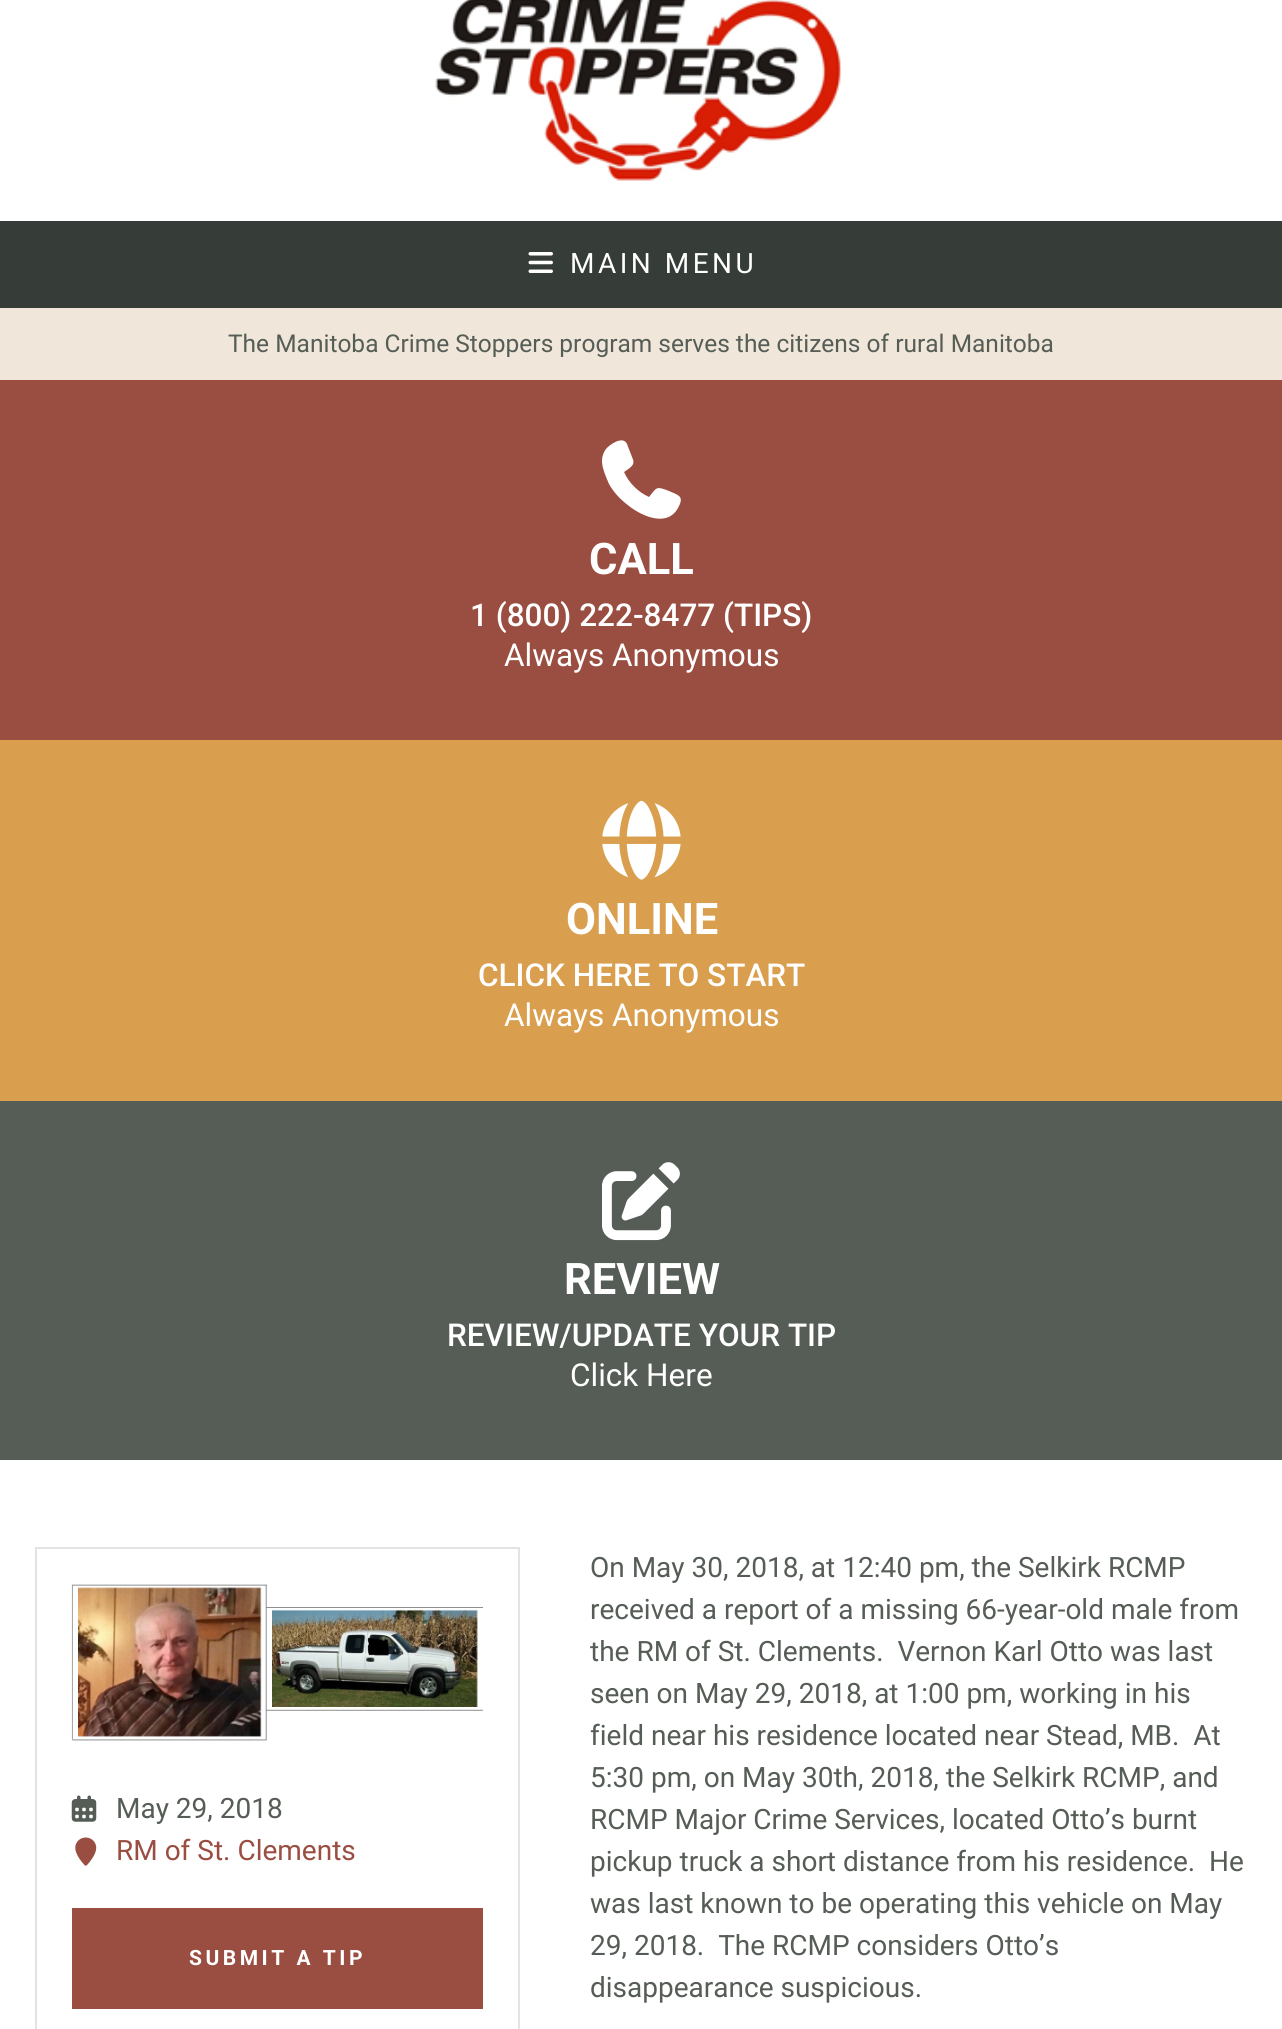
import math
import cairocffi as cairo

surface = cairo.ImageSurface(cairo.FORMAT_RGB24, 1282, 2029)
ctx = cairo.Context(surface)
options = cairo.FontOptions()
options.set_hint_metrics(cairo.HINT_METRICS_OFF)
options.set_hint_style(cairo.HINT_STYLE_NONE)
ctx.set_font_options(options)
ctx.set_miter_limit(4)


def rgb(r, g, b):
    ctx.set_source_rgb(r / 255, g / 255, b / 255)


def face(family, size, italic, bold):
    ctx.select_font_face(family, cairo.FONT_SLANT_ITALIC if italic else cairo.FONT_SLANT_NORMAL, cairo.FONT_WEIGHT_BOLD if bold else cairo.FONT_WEIGHT_NORMAL)
    ctx.set_font_size(size)


def label(x, y, s):
    ctx.move_to(x, y)
    ctx.show_text(s)


def tracked(x, y, s, letter, word):
    ctx.move_to(x, y)
    for ch in s:
        ctx.show_text(ch)
        ctx.rel_move_to(letter + word * (ch == ' '), 0)


def rect(x, y, w, h):
    ctx.rectangle(x, y, w, h)
    ctx.fill()


def image(path, x, y, w, h):
    ctx.save()
    ctx.set_source_surface(cairo.ImageSurface.create_from_png(path), x, y)
    ctx.rectangle(x, y, w, h)
    ctx.fill()
    ctx.restore()


rgb(255, 255, 255)
ctx.paint()
image('image0.png', 435, 0, 407, 181)
rgb(54, 60, 55)
rect(0, 221, 1282, 87)
image('image1.png', 528, 252, 25, 21)
face('Roboto', 28, 0, 0)
rgb(255, 255, 255)
tracked(570, 273, 'MAIN MENU', 3.5, 0)
rgb(240, 231, 218)
rect(0, 308, 1282, 72)
face('Roboto', 24.5, 0, 0)
rgb(86, 93, 86)
label(228, 352, 'The Manitoba Crime Stoppers program serves the citizens of rural Manitoba')
rgb(154, 78, 65)
rect(0, 380, 1282, 360)
rgb(255, 255, 255)
ctx.new_path()
ctx.move_to(627, 444)
ctx.curve_to(623, 435, 609, 445, 606, 449)
ctx.curve_to(603, 453, 602, 457, 602, 461)
ctx.curve_to(602, 468, 606, 477, 609, 484)
ctx.curve_to(614, 493, 621, 500, 629, 506)
ctx.curve_to(643, 517, 669, 528, 679, 506)
ctx.curve_to(684, 496, 678, 495, 669, 491)
ctx.curve_to(656, 486, 657, 487, 649, 497)
ctx.curve_to(638, 492, 629, 483, 624, 472)
ctx.curve_to(631, 467, 636, 465, 632, 457)
ctx.close_path()
ctx.fill()
face('Roboto', 43.5, 0, 1)
label(589, 574, 'CALL')
face('Roboto Medium', 31.5, 0, 0)
label(470, 626, '1 (800) 222-8477 (TIPS)')
face('Roboto', 31.5, 0, 0)
label(504, 666, 'Always Anonymous')
rgb(217, 159, 78)
rect(0, 740, 1282, 361)
image('image2.png', 602, 800, 79, 80)
face('Roboto', 43.5, 0, 1)
rgb(255, 255, 255)
label(566, 934, 'ONLINE')
face('Roboto Medium', 31.5, 0, 0)
label(478, 986, 'CLICK HERE TO START')
face('Roboto', 31.5, 0, 0)
label(504, 1026, 'Always Anonymous')
rgb(86, 93, 86)
rect(0, 1101, 1282, 359)
image('image3.png', 602, 1162, 78, 79)
face('Roboto', 43.5, 0, 1)
rgb(255, 255, 255)
label(564, 1294, 'REVIEW')
face('Roboto Medium', 31.5, 0, 0)
label(447, 1346, 'REVIEW/UPDATE YOUR TIP')
face('Roboto', 31.5, 0, 0)
label(570, 1386, 'Click Here')
ctx.rectangle(36, 1548, 483, 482)
rgb(227, 227, 227)
ctx.stroke()
image('image4.png', 71, 1584, 412, 157)
image('image5.png', 71, 1795, 26, 27)
face('Roboto', 28, 0, 0)
rgb(86, 93, 86)
label(116, 1818, 'May 29, 2018')
image('image6.png', 75, 1837, 22, 29)
rgb(154, 78, 65)
label(116, 1860, 'RM of St. Clements')
rect(72, 1908, 411, 101)
face('Roboto', 21, 0, 1)
rgb(255, 255, 255)
tracked(189, 1965, 'SUBMIT A TIP', 3.5, 0)
face('Roboto', 28, 0, 0)
rgb(86, 93, 86)
label(590, 1577, 'On May 30, 2018, at 12:40 pm, the Selkirk RCMP')
label(590, 1619, 'received a report of a missing 66-year-old male from')
label(590, 1661, 'the RM of St. Clements.  Vernon Karl Otto was last')
label(590, 1703, 'seen on May 29, 2018, at 1:00 pm, working in his')
label(590, 1745, 'field near his residence located near Stead, MB.  At')
label(590, 1787, '5:30 pm, on May 30th, 2018, the Selkirk RCMP, and')
label(590, 1829, 'RCMP Major Crime Services, located Otto’s burnt')
label(590, 1871, 'pickup truck a short distance from his residence.  He')
label(590, 1913, 'was last known to be operating this vehicle on May')
label(590, 1955, '29, 2018.  The RCMP considers Otto’s')
label(590, 1997, 'disappearance suspicious.')
surface.write_to_png('render.png')
